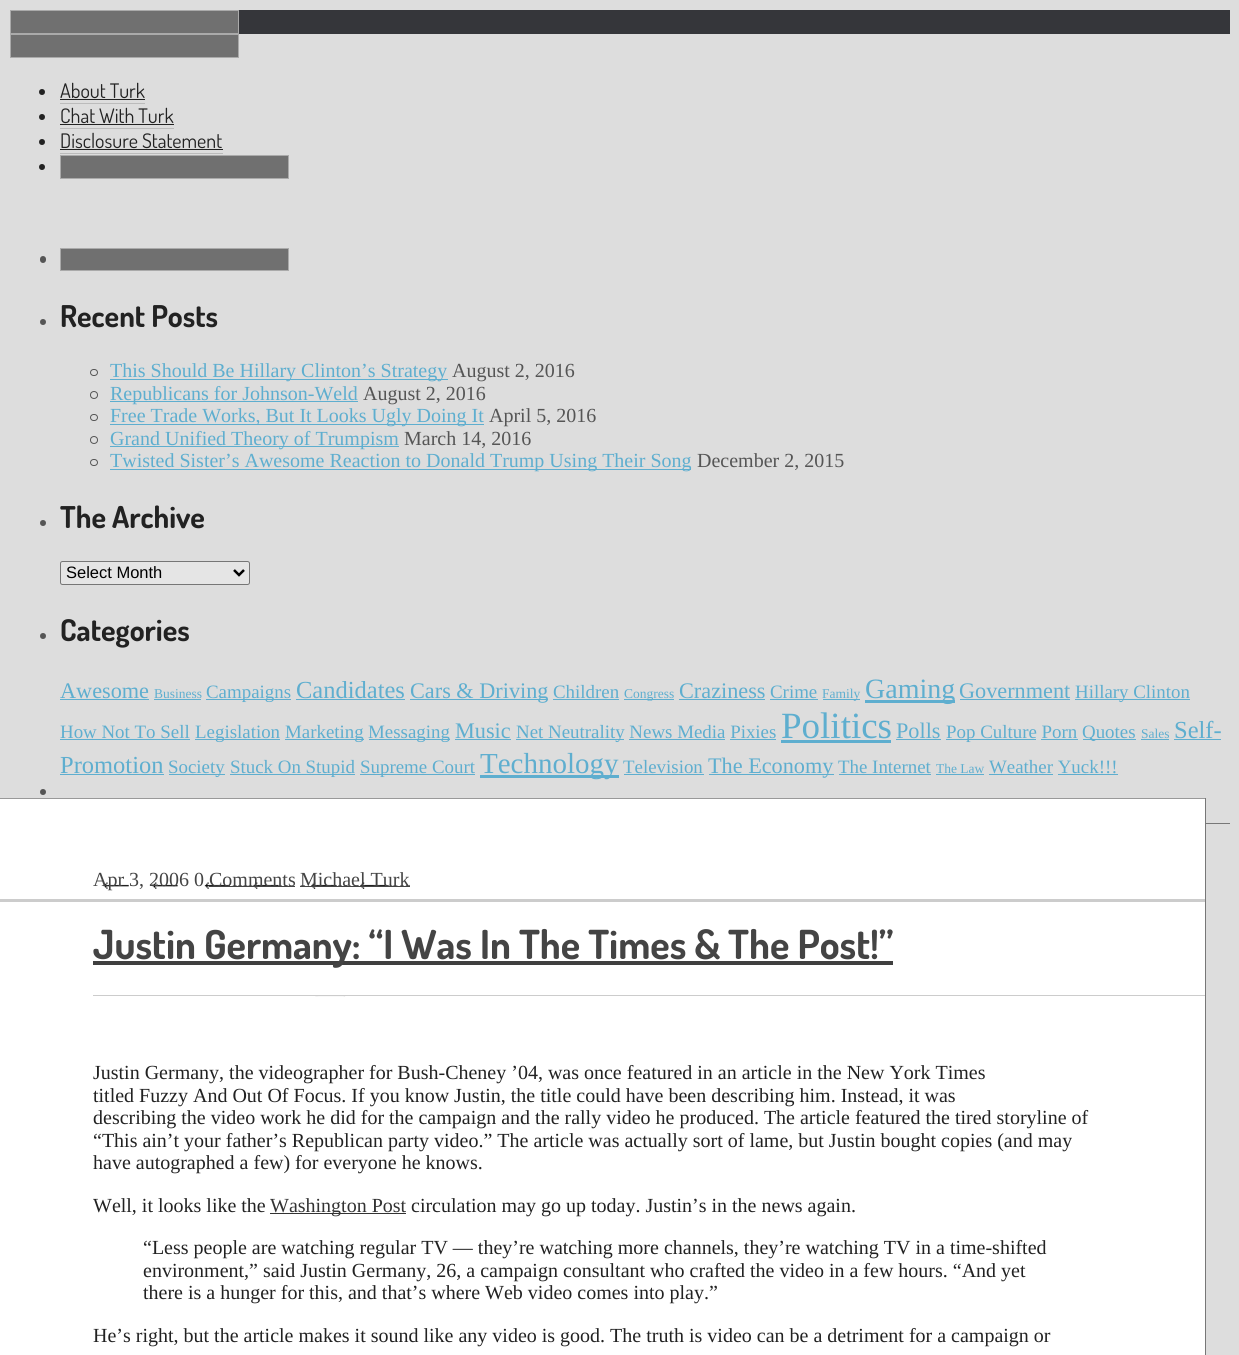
import math
import cairocffi as cairo

surface = cairo.ImageSurface(cairo.FORMAT_RGB24, 1239, 1355)
ctx = cairo.Context(surface)
options = cairo.FontOptions()
options.set_hint_metrics(cairo.HINT_METRICS_OFF)
options.set_hint_style(cairo.HINT_STYLE_NONE)
ctx.set_font_options(options)
ctx.set_miter_limit(4)


def rgb(r, g, b):
    ctx.set_source_rgb(r / 255, g / 255, b / 255)


def face(family, size, italic, bold):
    ctx.select_font_face(family, cairo.FONT_SLANT_ITALIC if italic else cairo.FONT_SLANT_NORMAL, cairo.FONT_WEIGHT_BOLD if bold else cairo.FONT_WEIGHT_NORMAL)
    ctx.set_font_size(size)


def label(x, y, s):
    ctx.move_to(x, y)
    ctx.show_text(s)


def rect(x, y, w, h):
    ctx.rectangle(x, y, w, h)
    ctx.fill()


def rrect(x, y, w, h, r):
    ctx.new_sub_path()
    for i, (u, v) in enumerate([(x + w - r, y + h - r), (x + r, y + h - r), (x + r, y + r), (x + w - r, y + r)]):
        ctx.arc(u, v, r, i * math.pi / 2, (i + 1) * math.pi / 2)
    ctx.close_path()


def image(path, x, y, w, h):
    ctx.save()
    ctx.set_source_surface(cairo.ImageSurface.create_from_png(path), x, y)
    ctx.rectangle(x, y, w, h)
    ctx.fill()
    ctx.restore()


rgb(221, 221, 221)
ctx.paint()
rgb(53, 54, 58)
rect(239, 10, 991, 24)
rgb(112, 112, 112)
ctx.rectangle(10.5, 10.5, 228, 23)
ctx.fill_preserve()
rgb(170, 170, 170)
ctx.set_line_width(1)
ctx.stroke()
rgb(112, 112, 112)
ctx.rectangle(10.5, 34.5, 228, 23)
ctx.fill_preserve()
rgb(170, 170, 170)
ctx.stroke()
rgb(34, 34, 34)
ctx.arc(42, 92, 3, 0, 2 * math.pi)
ctx.fill()
face('Dosis', 20, 0, 0)
label(60, 98, 'About Turk')
rgb(187, 187, 187)
rect(60, 103, 85, 1)
rgb(34, 34, 34)
rect(60, 99, 85, 1)
ctx.new_path()
ctx.arc(42, 117, 3, 0, 2 * math.pi)
ctx.fill()
label(60, 123, 'Chat With Turk')
rgb(187, 187, 187)
rect(60, 128, 114, 1)
rgb(34, 34, 34)
rect(60, 124, 114, 1)
ctx.new_path()
ctx.arc(42, 142, 3, 0, 2 * math.pi)
ctx.fill()
label(60, 148, 'Disclosure Statement')
rgb(187, 187, 187)
rect(60, 153, 163, 1)
rgb(34, 34, 34)
rect(60, 149, 163, 1)
ctx.new_path()
ctx.arc(42, 167, 3, 0, 2 * math.pi)
ctx.fill()
rgb(112, 112, 112)
ctx.rectangle(60.5, 155.5, 228, 23)
ctx.fill_preserve()
rgb(170, 170, 170)
ctx.stroke()
rgb(85, 85, 85)
rrect(40, 256, 6, 7, 3)
ctx.fill()
rgb(112, 112, 112)
ctx.rectangle(60.5, 248.5, 228, 22)
ctx.fill_preserve()
rgb(170, 170, 170)
ctx.stroke()
rgb(85, 85, 85)
ctx.arc(43, 322, 3, 0, 2 * math.pi)
ctx.fill()
face('Dosis', 30, 0, 1)
rgb(34, 34, 34)
label(60, 327, 'Recent Posts')
rrect(90.5, 369.5, 7, 6, 3)
rgb(85, 85, 85)
ctx.stroke()
rgb(94, 174, 207)
rect(110, 379, 338, 1)
face('Liberation Serif', 20, 0, 0)
label(110, 377, 'This Should Be Hillary Clinton’s Strategy')
rgb(85, 85, 85)
label(452, 377, 'August 2, 2016')
ctx.new_path()
ctx.arc(94, 395, 3.5, 0, 2 * math.pi)
ctx.stroke()
rgb(94, 174, 207)
rect(110, 401, 248, 1)
label(110, 400, 'Republicans for Johnson-Weld')
rgb(85, 85, 85)
label(363, 400, 'August 2, 2016')
rrect(90.5, 414.5, 7, 6, 3)
ctx.stroke()
rgb(94, 174, 207)
rect(110, 424, 374, 1)
label(110, 422, 'Free Trade Works, But It Looks Ugly Doing It')
rgb(85, 85, 85)
label(489, 422, 'April 5, 2016')
ctx.new_path()
ctx.arc(94, 440, 3.5, 0, 2 * math.pi)
ctx.stroke()
rgb(94, 174, 207)
rect(110, 446, 289, 1)
label(110, 445, 'Grand Unified Theory of Trumpism')
rgb(85, 85, 85)
label(404, 445, 'March 14, 2016')
rrect(90.5, 459.5, 7, 6, 3)
ctx.stroke()
rgb(94, 174, 207)
rect(110, 469, 581, 1)
label(110, 467, 'Twisted Sister’s Awesome Reaction to Donald Trump Using Their Song')
rgb(85, 85, 85)
label(697, 467, 'December 2, 2015')
ctx.new_path()
ctx.arc(43, 523, 3, 0, 2 * math.pi)
ctx.fill()
face('Dosis', 30, 0, 1)
rgb(34, 34, 34)
label(60, 528, 'The Archive')
rgb(229, 229, 229)
rrect(60.5, 561.5, 189, 23, 2)
ctx.fill_preserve()
rgb(118, 118, 118)
ctx.stroke()
ctx.new_path()
ctx.move_to(234, 570)
ctx.line_to(239, 575)
ctx.line_to(244, 570)
rgb(0, 0, 0)
ctx.set_line_width(2.5)
ctx.stroke()
face('Liberation Sans', 16.5, 0, 0)
label(66, 578, 'Select Month')
rgb(85, 85, 85)
ctx.new_path()
ctx.arc(43, 636, 3, 0, 2 * math.pi)
ctx.fill()
face('Dosis', 30, 0, 1)
rgb(34, 34, 34)
label(60, 641, 'Categories')
face('Liberation Serif', 22.25, 0, 0)
rgb(94, 174, 207)
label(60, 698, 'Awesome')
rect(60, 699, 89, 1)
face('Liberation Serif', 13.5, 0, 0)
label(154, 698, 'Business')
rect(154, 699, 47, 1)
rect(206, 699, 85, 1)
face('Liberation Serif', 18.9, 0, 0)
label(206, 698, 'Campaigns')
face('Liberation Serif', 24.5, 0, 0)
label(296, 698, 'Candidates')
rect(296, 699, 109, 1)
rect(410, 699, 138, 1)
face('Liberation Serif', 22.25, 0, 0)
label(410, 698, 'Cars & Driving')
face('Liberation Serif', 18.9, 0, 0)
label(553, 698, 'Children')
rect(553, 699, 66, 1)
rect(624, 699, 50, 1)
face('Liberation Serif', 13.5, 0, 0)
label(624, 698, 'Congress')
face('Liberation Serif', 22.25, 0, 0)
label(679, 698, 'Craziness')
rect(679, 699, 86, 1)
face('Liberation Serif', 18.9, 0, 0)
label(770, 698, 'Crime')
rect(770, 699, 48, 1)
rect(823, 699, 37, 1)
face('Liberation Serif', 13.5, 0, 0)
label(822, 698, 'Family')
rect(865, 700, 90, 3)
face('Liberation Serif', 28, 0, 0)
label(865, 698, 'Gaming')
face('Liberation Serif', 22.25, 0, 0)
label(959, 698, 'Government')
rect(960, 699, 110, 1)
rect(1075, 699, 115, 1)
face('Liberation Serif', 18.9, 0, 0)
label(1075, 698, 'Hillary Clinton')
label(60, 738, 'How Not To Sell')
rect(60, 739, 130, 1)
rect(195, 739, 85, 1)
label(195, 738, 'Legislation')
rect(285, 739, 79, 1)
label(285, 738, 'Marketing')
rect(369, 739, 81, 1)
label(368, 738, 'Messaging')
face('Liberation Serif', 22.25, 0, 0)
label(455, 738, 'Music')
rect(455, 739, 56, 1)
rect(516, 739, 108, 1)
face('Liberation Serif', 18.9, 0, 0)
label(516, 738, 'Net Neutrality News Media Pixies')
face('Liberation Serif', 37, 0, 0)
label(781, 738, 'Politics')
rect(781, 740, 110, 3)
face('Liberation Serif', 22.25, 0, 0)
label(896, 738, 'Polls')
rect(896, 739, 45, 1)
rect(946, 739, 90, 1)
face('Liberation Serif', 18.9, 0, 0)
label(946, 738, 'Pop Culture Porn')
rect(1083, 739, 53, 1)
label(1082, 738, 'Quotes')
face('Liberation Serif', 13.5, 0, 0)
label(1141, 738, 'Sales')
rect(1141, 739, 28, 1)
face('Liberation Serif', 24.5, 0, 0)
label(1174, 738, 'Self-')
rect(1174, 739, 47, 1)
rect(629, 739, 96, 1)
rect(730, 739, 46, 1)
rect(1041, 739, 37, 1)
label(60, 773, 'Promotion')
rect(60, 774, 104, 1)
rect(169, 774, 56, 1)
face('Liberation Serif', 18.9, 0, 0)
label(168, 773, 'Society')
rect(230, 774, 125, 1)
label(230, 773, 'Stuck On Stupid')
rect(360, 774, 115, 1)
label(360, 773, 'Supreme Court')
rect(480, 775, 139, 3)
face('Liberation Serif', 29, 0, 0)
label(480, 773, 'Technology')
face('Liberation Serif', 18.9, 0, 0)
label(623, 773, 'Television')
rect(624, 774, 80, 1)
rect(709, 774, 125, 1)
face('Liberation Serif', 22.25, 0, 0)
label(708, 773, 'The Economy')
face('Liberation Serif', 18.9, 0, 0)
label(838, 773, 'The Internet')
rect(839, 774, 92, 1)
face('Liberation Serif', 13.5, 0, 0)
label(936, 773, 'The Law')
rect(936, 774, 48, 1)
face('Liberation Serif', 18.9, 0, 0)
label(989, 773, 'Weather Yuck!!!')
rect(989, 774, 64, 1)
rect(1058, 774, 60, 1)
rgb(85, 85, 85)
ctx.new_path()
ctx.arc(43, 792, 3, 0, 2 * math.pi)
ctx.fill()
rgb(119, 119, 119)
rect(1206, 823, 24, 1)
rgb(255, 255, 255)
rect(0, 799, 1205, 556)
rgb(153, 153, 153)
rect(0, 798, 1206, 1)
rgb(119, 119, 119)
rect(1205, 798, 1, 557)
image('image0.png', 103, 882, 75, 7)
face('Liberation Serif', 20, 0, 0)
rgb(68, 68, 68)
label(93, 886, 'Apr 3, 2006 0')
image('image1.png', 204, 882, 75, 7)
rect(209, 886, 86, 1)
label(209, 886, 'Comments')
image('image2.png', 311, 882, 99, 7)
rect(300, 886, 110, 1)
label(300, 886, 'Michael Turk')
rgb(63, 63, 63)
rect(93, 961, 800, 4)
face('Dosis', 40, 0, 1)
rgb(68, 68, 68)
label(93, 959, 'Justin Germany: “I Was In The Times & The Post!”')
image('image3.png', 315, 996, 31, 1)
rgb(204, 204, 204)
rect(93, 995, 1112, 1)
face('Liberation Serif', 20, 0, 0)
rgb(34, 34, 34)
label(93, 1079, 'Justin Germany, the videographer for Bush-Cheney ’04, was once featured in an article in the New York Times')
label(93, 1102, 'titled Fuzzy And Out Of Focus. If you know Justin, the title could have been describing him. Instead, it was')
label(93, 1124, 'describing the video work he did for the campaign and the rally video he produced. The article featured the tired storyline of')
label(93, 1147, '“This ain’t your father’s Republican party video.” The article was actually sort of lame, but Justin bought copies (and may')
label(93, 1169, 'have autographed a few) for everyone he knows.')
label(93, 1212, 'Well, it looks like the')
rgb(51, 51, 51)
rect(270, 1213, 136, 1)
label(270, 1212, 'Washington Post')
rgb(34, 34, 34)
label(411, 1212, 'circulation may go up today. Justin’s in the news again.')
label(143, 1254, '“Less people are watching regular TV — they’re watching more channels, they’re watching TV in a time-shifted')
label(143, 1277, 'environment,” said Justin Germany, 26, a campaign consultant who crafted the video in a few hours. “And yet')
label(143, 1299, 'there is a hunger for this, and that’s where Web video comes into play.”')
label(93, 1342, 'He’s right, but the article makes it sound like any video is good. The truth is video can be a detriment for a campaign or')
rgb(204, 204, 204)
rect(0, 899, 1205, 3)
surface.write_to_png('render.png')
